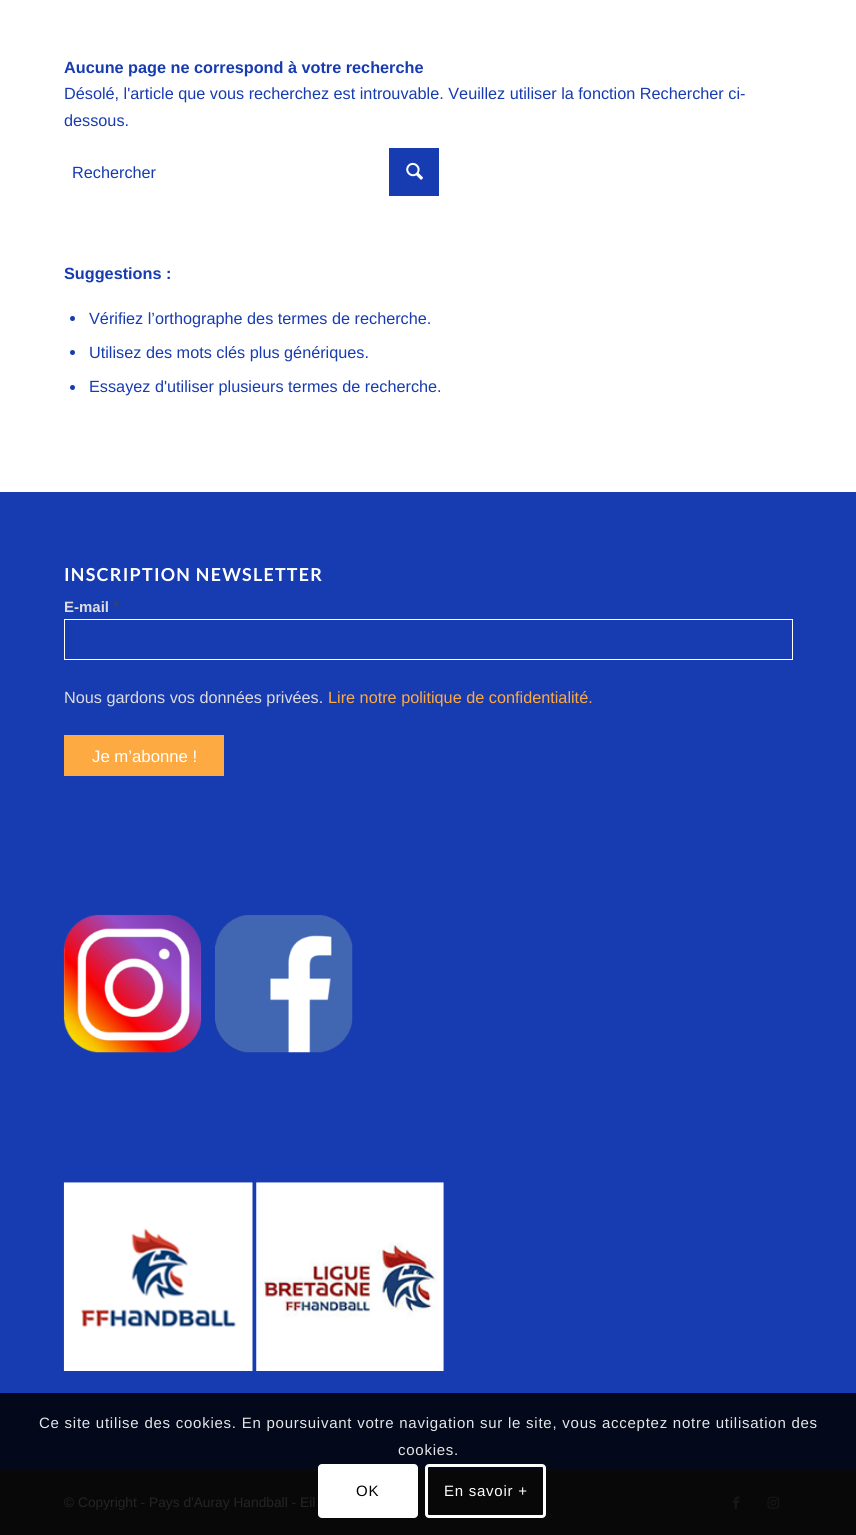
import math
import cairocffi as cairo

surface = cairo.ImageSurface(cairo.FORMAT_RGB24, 856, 1535)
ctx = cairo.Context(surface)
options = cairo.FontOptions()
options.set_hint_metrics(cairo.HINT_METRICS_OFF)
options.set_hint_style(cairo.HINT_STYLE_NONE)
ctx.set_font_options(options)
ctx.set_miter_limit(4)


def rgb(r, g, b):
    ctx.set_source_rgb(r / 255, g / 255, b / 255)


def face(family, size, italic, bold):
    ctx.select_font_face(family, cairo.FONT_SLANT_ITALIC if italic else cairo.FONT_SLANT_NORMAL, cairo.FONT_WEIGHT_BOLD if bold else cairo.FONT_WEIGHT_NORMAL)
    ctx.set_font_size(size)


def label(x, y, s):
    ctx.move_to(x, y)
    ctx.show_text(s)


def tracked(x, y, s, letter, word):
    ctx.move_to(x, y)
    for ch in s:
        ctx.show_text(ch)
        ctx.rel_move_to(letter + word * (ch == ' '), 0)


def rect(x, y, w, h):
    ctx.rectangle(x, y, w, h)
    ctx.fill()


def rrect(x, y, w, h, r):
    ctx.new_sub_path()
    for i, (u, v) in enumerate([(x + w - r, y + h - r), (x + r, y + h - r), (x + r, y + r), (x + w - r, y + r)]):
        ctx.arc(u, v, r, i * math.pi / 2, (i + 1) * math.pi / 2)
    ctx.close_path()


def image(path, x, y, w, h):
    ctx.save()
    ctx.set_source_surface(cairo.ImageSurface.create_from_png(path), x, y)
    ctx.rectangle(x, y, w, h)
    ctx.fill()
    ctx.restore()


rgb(23, 59, 176)
ctx.paint()
rgb(3, 9, 26)
rect(0, 1393, 856, 77)
rgb(255, 255, 255)
rect(0, 0, 856, 492)
face('Liberation Sans', 16.25, 0, 1)
rgb(23, 59, 176)
label(64, 73, 'Aucune page ne correspond à votre recherche')
face('Liberation Sans', 16.25, 0, 0)
label(64, 99, 'Désolé, l\'article que vous recherchez est introuvable. Veuillez utiliser la fonction Rechercher ci-')
label(64, 126, 'dessous.')
label(72, 178, 'Rechercher')
rect(389, 148, 50, 48)
image('image0.png', 406, 162, 17, 18)
face('Liberation Sans', 16.25, 0, 1)
label(64, 279, 'Suggestions :')
ctx.new_path()
ctx.arc(72.5, 318.5, 2.5, 0, 2 * math.pi)
ctx.fill()
face('Liberation Sans', 16.25, 0, 0)
label(89, 324, 'Vérifiez l’orthographe des termes de recherche.')
ctx.new_path()
ctx.arc(72.5, 352.5, 2.5, 0, 2 * math.pi)
ctx.fill()
label(89, 358, 'Utilisez des mots clés plus génériques.')
ctx.new_path()
ctx.arc(72.5, 387.5, 2.5, 0, 2 * math.pi)
ctx.fill()
label(89, 392, 'Essayez d\'utiliser plusieurs termes de recherche.')
face('Lato', 17.9, 0, 1)
rgb(255, 255, 255)
tracked(64, 581, 'INSCRIPTION NEWSLETTER', 1.25, 0)
face('Liberation Sans', 15, 0, 1)
rgb(221, 221, 221)
label(64, 612, 'E-mail')
face('Liberation Sans', 16.25, 0, 0)
rgb(68, 68, 68)
label(113, 612, '*')
ctx.rectangle(64.5, 619.5, 728, 40)
rgb(255, 255, 255)
ctx.set_line_width(1)
ctx.stroke()
rgb(221, 221, 221)
label(64, 703, 'Nous gardons vos données privées.')
rgb(254, 170, 67)
label(328, 703, 'Lire notre politique de confidentialité.')
rect(64, 735, 160, 41)
face('Liberation Sans', 16.75, 0, 0)
rgb(255, 255, 255)
label(92, 762, 'Je m’abonne !')
image('image1.png', 63, 914, 139, 139)
image('image2.png', 215, 915, 138, 138)
image('image3.png', 63, 1182, 190, 189)
image('image4.png', 256, 1182, 188, 189)
rgb(8, 8, 8)
rect(0, 1471, 856, 64)
rgb(10, 10, 10)
rect(0, 1470, 856, 1)
face('Liberation Sans', 13.75, 0, 0)
rgb(36, 36, 36)
label(64, 1507, '© Copyright - Pays d\'Auray Handball -')
label(300, 1507, 'Eil')
image('image5.png', 732, 1496, 8, 13)
image('image6.png', 767, 1496, 13, 13)
face('Liberation Sans', 15, 0, 0)
rgb(230, 230, 232)
tracked(39, 1428, 'Ce site utilise des cookies. En poursuivant votre navigation sur le site, vous acceptez notre utilisation des', 0.75, 0)
tracked(398, 1455, 'cookies.', 0.75, 0)
rgb(255, 255, 255)
rrect(318, 1464, 100, 54, 4)
ctx.fill()
rgb(0, 0, 0)
tracked(356, 1496, 'OK', 0.75, 0)
rrect(426.5, 1465.5, 118, 51, 2.5)
rgb(255, 255, 255)
ctx.set_line_width(3)
ctx.stroke()
tracked(444, 1496, 'En savoir +', 0.75, 0)
surface.write_to_png('render.png')
